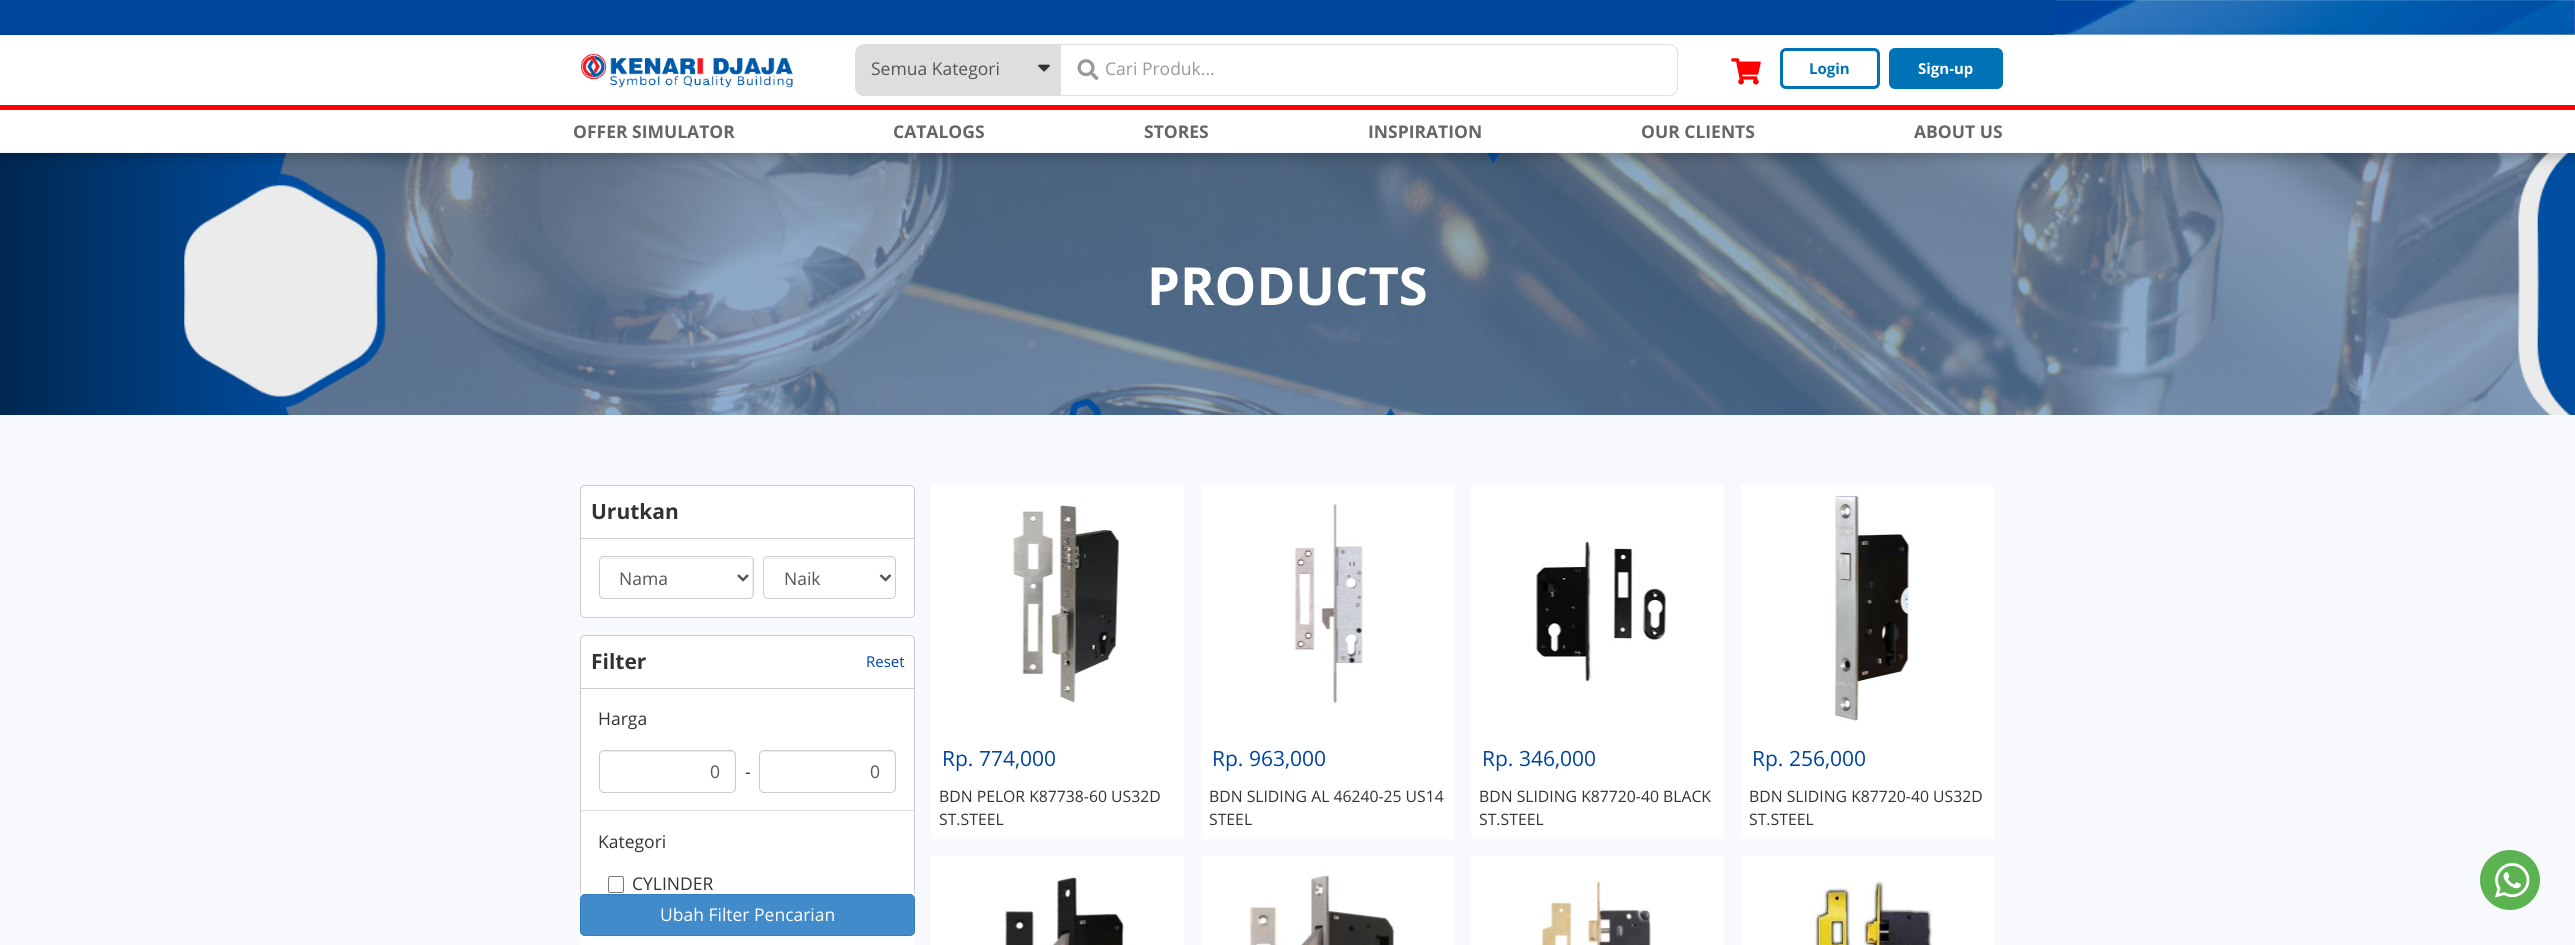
import math
import cairocffi as cairo

surface = cairo.ImageSurface(cairo.FORMAT_RGB24, 2575, 945)
ctx = cairo.Context(surface)
options = cairo.FontOptions()
options.set_hint_metrics(cairo.HINT_METRICS_OFF)
options.set_hint_style(cairo.HINT_STYLE_NONE)
ctx.set_font_options(options)
ctx.set_miter_limit(4)


def rgb(r, g, b):
    ctx.set_source_rgb(r / 255, g / 255, b / 255)


def face(family, size, italic, bold):
    ctx.select_font_face(family, cairo.FONT_SLANT_ITALIC if italic else cairo.FONT_SLANT_NORMAL, cairo.FONT_WEIGHT_BOLD if bold else cairo.FONT_WEIGHT_NORMAL)
    ctx.set_font_size(size)


def label(x, y, s):
    ctx.move_to(x, y)
    ctx.show_text(s)


def rect(x, y, w, h):
    ctx.rectangle(x, y, w, h)
    ctx.fill()


def rrect(x, y, w, h, r):
    ctx.new_sub_path()
    for i, (u, v) in enumerate([(x + w - r, y + h - r), (x + r, y + h - r), (x + r, y + r), (x + w - r, y + r)]):
        ctx.arc(u, v, r, i * math.pi / 2, (i + 1) * math.pi / 2)
    ctx.close_path()


def soft_shadow(x, y, w, h, r, blur, alpha):
    ctx.push_group_with_content(cairo.CONTENT_ALPHA)
    ctx.set_operator(cairo.OPERATOR_SOURCE)
    for i in range(15, -16, -2):
        e = blur * i / 6
        if min(w, h) + 2 * e > 0:
            ctx.set_source_rgba(0, 0, 0, alpha * math.erfc((i - 1) / 8.5) / 2)
            rrect(x - e, y - e, w + 2 * e, h + 2 * e, max(0, min(r + e + blur * .6, min(w, h) / 2 + e)))
            ctx.fill()
    ctx.mask(ctx.pop_group())


def image(path, x, y, w, h):
    ctx.save()
    ctx.set_source_surface(cairo.ImageSurface.create_from_png(path), x, y)
    ctx.rectangle(x, y, w, h)
    ctx.fill()
    ctx.restore()


rgb(255, 255, 255)
ctx.paint()
rgb(0, 70, 156)
rect(0, 0, 2055, 35)
image('image0.png', 2055, 0, 520, 35)
image('image5.png', 0, 152, 2575, 263)
ctx.save()
ctx.set_fill_rule(cairo.FILL_RULE_EVEN_ODD)
ctx.new_path()
ctx.move_to(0, 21)
ctx.line_to(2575, 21)
ctx.line_to(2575, 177)
ctx.line_to(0, 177)
ctx.close_path()
ctx.move_to(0, 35)
ctx.line_to(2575, 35)
ctx.line_to(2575, 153)
ctx.line_to(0, 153)
ctx.close_path()
ctx.clip()
rgb(0, 0, 0)
soft_shadow(0, 40, 2575, 118, 0, 6, 0.2)
ctx.restore()
ctx.set_source_rgba(1, 1, 1, 0.9)
rect(0, 152, 2575, 1)
image('image1.png', 581, 53, 212, 35)
rrect(855.5, 44.5, 822, 51, 8.5)
rgb(222, 222, 222)
ctx.set_line_width(1)
ctx.stroke()
ctx.new_path()
ctx.move_to(864, 45)
ctx.line_to(1061, 45)
ctx.line_to(1061, 96)
ctx.line_to(864, 96)
ctx.curve_to(859.5, 96, 856, 92.5, 856, 88)
ctx.line_to(856, 53)
ctx.curve_to(856, 48.5, 859.5, 45, 864, 45)
ctx.close_path()
ctx.fill()
face('Open Sans', 17.5, 0, 0)
rgb(85, 85, 85)
label(871, 75, 'Semua Kategori')
image('image2.png', 1038, 64, 12, 8)
image('image3.png', 1077, 59, 22, 22)
rgb(153, 153, 153)
label(1105, 75, 'Cari Produk...')
image('image4.png', 1731, 58, 30, 27)
rrect(1781.5, 49.5, 97, 38, 4.5)
rgb(0, 114, 182)
ctx.set_line_width(3)
ctx.stroke()
face('Open Sans', 15, 0, 1)
label(1809, 74, 'Login')
rrect(1890.5, 49.5, 111, 38, 4.5)
ctx.fill_preserve()
ctx.stroke()
rgb(255, 255, 255)
label(1918, 74, 'Sign-up')
rgb(255, 0, 0)
rect(0, 105, 2575, 5)
face('Open Sans', 17.5, 0, 1)
rgb(102, 102, 102)
label(573, 138, 'OFFER SIMULATOR')
label(893, 138, 'CATALOGS')
label(1144, 138, 'STORES')
label(1368, 138, 'INSPIRATION')
label(1641, 138, 'OUR CLIENTS')
label(1914, 138, 'ABOUT US')
rgb(248, 249, 252)
rect(0, 415, 2575, 530)
face('Open Sans', 52.5, 0, 1)
rgb(255, 255, 255)
label(1147, 305, 'PRODUCTS')
rrect(580.5, 485.5, 334, 132, 4.5)
ctx.fill_preserve()
rgb(204, 204, 204)
ctx.set_line_width(1)
ctx.stroke()
rect(581, 538, 333, 1)
face('Open Sans', 21, 0, 1)
rgb(51, 51, 51)
label(591, 519, 'Urutkan')
rgb(236, 236, 236)
ctx.new_path()
ctx.move_to(604, 559)
ctx.line_to(749, 559)
ctx.curve_to(751, 559, 752, 560, 752, 562)
ctx.line_to(752, 597)
ctx.curve_to(752, 596, 753, 595, 753, 594)
ctx.line_to(753, 562)
ctx.curve_to(753, 560, 751, 558, 749, 558)
ctx.line_to(604, 558)
ctx.curve_to(602, 558, 600, 560, 600, 562)
ctx.curve_to(600, 560, 602, 559, 604, 559)
ctx.close_path()
ctx.fill()
rrect(599.5, 556.5, 154, 42, 4.5)
rgb(204, 204, 204)
ctx.stroke()
ctx.new_path()
ctx.move_to(738, 575)
ctx.line_to(743, 580)
ctx.line_to(748, 575)
rgb(85, 85, 85)
ctx.set_line_width(2.5)
ctx.stroke()
face('Open Sans', 17.5, 0, 0)
label(619, 585, 'Nama')
rgb(236, 236, 236)
ctx.new_path()
ctx.move_to(768, 559)
ctx.line_to(891, 559)
ctx.curve_to(893, 559, 895, 560, 895, 562)
ctx.curve_to(895, 560, 893, 558, 891, 558)
ctx.line_to(768, 558)
ctx.curve_to(766, 558, 765, 559, 764, 560)
ctx.curve_to(765, 559, 766, 559, 768, 559)
ctx.close_path()
ctx.fill()
rrect(763.5, 556.5, 132, 42, 4.5)
rgb(204, 204, 204)
ctx.set_line_width(1)
ctx.stroke()
ctx.new_path()
ctx.move_to(880.5, 575)
ctx.line_to(885.5, 580)
ctx.line_to(890.5, 575)
rgb(85, 85, 85)
ctx.set_line_width(2.5)
ctx.stroke()
label(784, 585, 'Naik')
rgb(255, 255, 255)
rrect(580.5, 635.5, 334, 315, 4.5)
ctx.fill_preserve()
rgb(204, 204, 204)
ctx.set_line_width(1)
ctx.stroke()
rect(581, 688, 333, 1)
face('Open Sans', 21, 0, 1)
rgb(51, 51, 51)
label(591, 669, 'Filter')
face('Open Sans', 15, 0, 0)
rgb(0, 68, 161)
label(866, 667, 'Reset')
rgb(222, 222, 222)
rect(581, 810, 333, 1)
face('Open Sans', 17.5, 0, 0)
rgb(51, 51, 51)
label(598, 725, 'Harga')
rgb(236, 236, 236)
ctx.new_path()
ctx.move_to(604, 752)
ctx.line_to(731, 752)
ctx.curve_to(733, 752, 735, 754, 735, 756)
ctx.line_to(735, 755)
ctx.curve_to(735, 753, 733, 751, 731, 751)
ctx.line_to(604, 751)
ctx.curve_to(602, 751, 600, 753, 600, 755)
ctx.line_to(600, 756)
ctx.curve_to(600, 754, 602, 752, 604, 752)
ctx.close_path()
ctx.fill()
rrect(599.5, 750.5, 136, 42, 4.5)
rgb(204, 204, 204)
ctx.stroke()
rgb(85, 85, 85)
label(710, 778, '0')
rgb(51, 51, 51)
label(745, 778, '-')
rgb(236, 236, 236)
ctx.new_path()
ctx.move_to(764, 752)
ctx.line_to(891, 752)
ctx.curve_to(893, 752, 895, 754, 895, 756)
ctx.line_to(895, 755)
ctx.curve_to(895, 753, 893, 751, 891, 751)
ctx.line_to(764, 751)
ctx.curve_to(762, 751, 760, 753, 760, 755)
ctx.line_to(760, 756)
ctx.curve_to(760, 754, 762, 752, 764, 752)
ctx.close_path()
ctx.fill()
rrect(759.5, 750.5, 136, 42, 4.5)
rgb(204, 204, 204)
ctx.stroke()
rgb(85, 85, 85)
label(870, 778, '0')
rgb(51, 51, 51)
label(598, 848, 'Kategori')
rrect(608.5, 876.5, 15, 16, 2)
rgb(118, 118, 118)
ctx.stroke()
rgb(51, 51, 51)
label(632, 890, 'CYLINDER')
rgb(255, 255, 255)
rect(580, 894, 335, 51)
rgb(66, 139, 202)
rrect(580.5, 894.5, 334, 41, 4.5)
ctx.fill_preserve()
rgb(53, 126, 189)
ctx.stroke()
rgb(255, 255, 255)
label(660, 921, 'Ubah Filter Pencarian')
rect(931, 485, 253, 354)
image('image6.png', 1012, 505, 107, 197)
face('Open Sans', 21, 0, 0)
rgb(0, 68, 161)
label(942, 766, 'Rp. 774,000')
face('Open Sans', 15.75, 0, 0)
rgb(51, 51, 51)
label(939, 802, 'BDN PELOR K87738-60 US32D')
label(939, 825, 'ST.STEEL')
rgb(255, 255, 255)
rect(1201, 485, 253, 354)
image('image7.png', 1294, 504, 69, 199)
face('Open Sans', 21, 0, 0)
rgb(0, 68, 161)
label(1212, 766, 'Rp. 963,000')
face('Open Sans', 15.75, 0, 0)
rgb(51, 51, 51)
label(1209, 802, 'BDN SLIDING AL 46240-25 US14')
label(1209, 825, 'STEEL')
rgb(255, 255, 255)
rect(1471, 485, 253, 354)
image('image8.png', 1535, 542, 132, 139)
face('Open Sans', 21, 0, 0)
rgb(0, 68, 161)
label(1482, 766, 'Rp. 346,000')
face('Open Sans', 15.75, 0, 0)
rgb(51, 51, 51)
label(1479, 802, 'BDN SLIDING K87720-40 BLACK')
label(1479, 825, 'ST.STEEL')
rgb(255, 255, 255)
rect(1741, 485, 253, 354)
image('image9.png', 1834, 494, 77, 227)
face('Open Sans', 21, 0, 0)
rgb(0, 68, 161)
label(1752, 766, 'Rp. 256,000')
face('Open Sans', 15.75, 0, 0)
rgb(51, 51, 51)
label(1749, 802, 'BDN SLIDING K87720-40 US32D')
label(1749, 825, 'ST.STEEL')
rgb(255, 255, 255)
rect(931, 856, 253, 89)
image('image10.png', 1005, 877, 119, 68)
rect(1201, 856, 253, 89)
image('image11.png', 1250, 873, 144, 72)
rect(1471, 856, 253, 89)
image('image12.png', 1541, 880, 110, 65)
rect(1741, 856, 253, 89)
image('image13.png', 1811, 881, 122, 64)
rgb(91, 179, 82)
ctx.arc(2510, 880, 30, 0, 2 * math.pi)
ctx.fill()
image('image14.png', 2495, 863, 35, 35)
surface.write_to_png('render.png')
